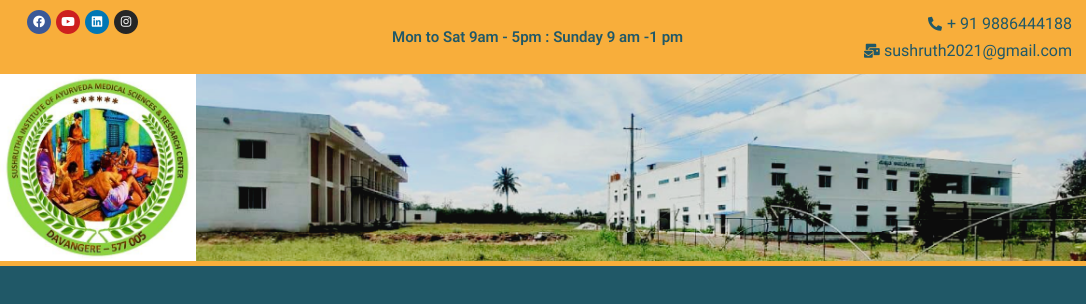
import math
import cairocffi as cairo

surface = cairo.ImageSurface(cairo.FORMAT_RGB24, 1086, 304)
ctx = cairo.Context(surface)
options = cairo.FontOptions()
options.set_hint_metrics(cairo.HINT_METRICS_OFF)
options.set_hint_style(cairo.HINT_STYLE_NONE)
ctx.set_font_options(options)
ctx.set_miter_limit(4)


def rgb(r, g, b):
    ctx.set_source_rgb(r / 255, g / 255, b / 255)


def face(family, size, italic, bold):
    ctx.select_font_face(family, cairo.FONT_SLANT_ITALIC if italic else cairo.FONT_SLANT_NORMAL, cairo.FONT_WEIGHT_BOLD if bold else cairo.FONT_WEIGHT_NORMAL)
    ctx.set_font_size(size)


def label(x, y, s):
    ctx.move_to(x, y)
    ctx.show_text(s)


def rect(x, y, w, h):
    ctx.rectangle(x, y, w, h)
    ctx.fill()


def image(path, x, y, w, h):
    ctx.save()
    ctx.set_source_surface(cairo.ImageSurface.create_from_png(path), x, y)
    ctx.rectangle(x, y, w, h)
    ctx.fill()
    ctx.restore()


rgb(255, 255, 255)
ctx.paint()
rgb(248, 174, 59)
rect(0, 0, 1086, 74)
rgb(59, 89, 152)
ctx.arc(39, 22, 12, 0, 2 * math.pi)
ctx.fill()
image('image0.png', 33, 15, 12, 13)
rgb(205, 32, 31)
ctx.arc(68, 22, 12, 0, 2 * math.pi)
ctx.fill()
image('image1.png', 61, 17, 14, 9)
rgb(0, 119, 181)
ctx.arc(97, 22, 12, 0, 2 * math.pi)
ctx.fill()
image('image2.png', 91, 16, 12, 11)
rgb(38, 38, 38)
ctx.arc(126, 22, 12, 0, 2 * math.pi)
ctx.fill()
image('image3.png', 120, 16, 12, 11)
face('Roboto SemiBold', 15, 0, 0)
rgb(32, 88, 103)
label(392, 42, 'Mon to Sat 9am - 5pm : Sunday 9 am -1 pm')
image('image4.png', 928, 16, 14, 15)
face('Roboto', 16, 0, 0)
label(947, 29, '+ 91 9886444188')
image('image5.png', 864, 43, 16, 15)
label(884, 56, 'sushruth2021@gmail.com')
image('image6.png', 0, 74, 194, 185)
image('image7.png', 196, 74, 890, 187)
rect(0, 266, 1086, 38)
rgb(248, 174, 59)
rect(0, 261, 1086, 5)
surface.write_to_png('render.png')
